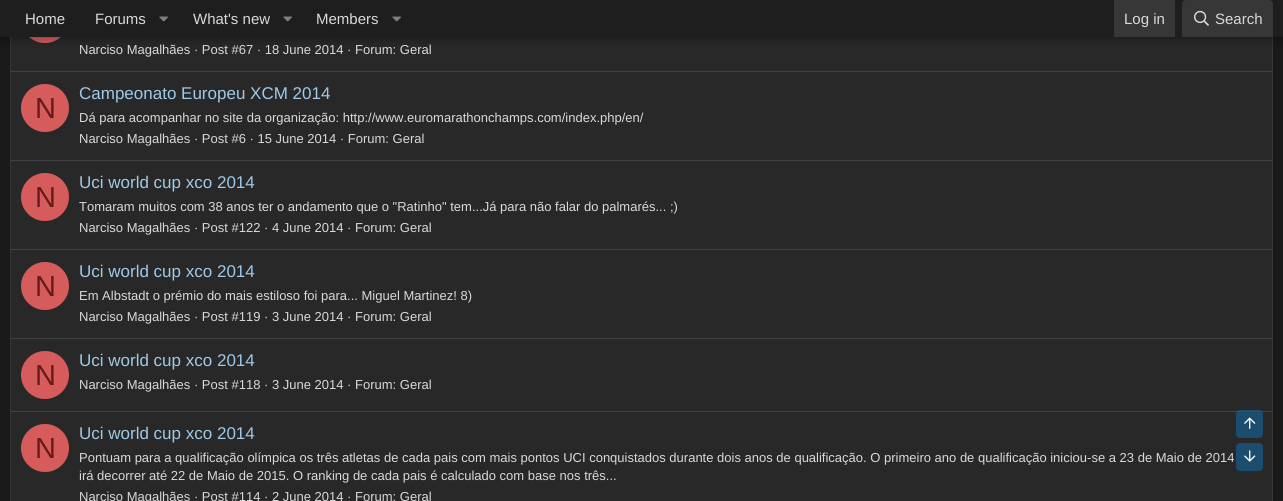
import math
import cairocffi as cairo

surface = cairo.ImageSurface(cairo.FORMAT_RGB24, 1283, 501)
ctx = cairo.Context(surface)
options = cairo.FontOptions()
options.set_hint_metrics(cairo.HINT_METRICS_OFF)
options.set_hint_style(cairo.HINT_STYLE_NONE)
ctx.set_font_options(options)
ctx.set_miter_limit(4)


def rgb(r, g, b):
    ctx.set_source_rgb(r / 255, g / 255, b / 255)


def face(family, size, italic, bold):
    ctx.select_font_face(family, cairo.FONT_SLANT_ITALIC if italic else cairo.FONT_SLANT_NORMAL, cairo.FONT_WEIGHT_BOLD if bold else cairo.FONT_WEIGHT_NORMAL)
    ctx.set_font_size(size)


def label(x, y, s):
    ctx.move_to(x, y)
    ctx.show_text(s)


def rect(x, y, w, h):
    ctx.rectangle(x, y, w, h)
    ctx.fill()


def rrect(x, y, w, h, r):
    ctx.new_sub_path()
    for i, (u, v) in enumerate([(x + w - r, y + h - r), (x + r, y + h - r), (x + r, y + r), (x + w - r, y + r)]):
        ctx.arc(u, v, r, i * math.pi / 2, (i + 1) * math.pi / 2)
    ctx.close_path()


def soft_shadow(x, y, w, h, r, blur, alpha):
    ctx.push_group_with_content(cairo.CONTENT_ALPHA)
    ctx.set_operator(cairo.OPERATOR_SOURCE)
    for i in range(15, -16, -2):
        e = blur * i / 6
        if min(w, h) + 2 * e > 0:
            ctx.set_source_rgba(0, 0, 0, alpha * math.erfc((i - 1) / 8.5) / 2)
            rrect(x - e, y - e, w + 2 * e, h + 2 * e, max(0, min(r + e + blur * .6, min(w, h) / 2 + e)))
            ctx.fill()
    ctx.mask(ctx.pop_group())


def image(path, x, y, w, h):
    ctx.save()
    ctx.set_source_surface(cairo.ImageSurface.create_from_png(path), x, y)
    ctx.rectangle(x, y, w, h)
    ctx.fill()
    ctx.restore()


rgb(25, 25, 25)
ctx.paint()
rgb(40, 40, 40)
rect(11, 37, 1261, 464)
ctx.rectangle(10.5, -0.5, 1262, 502)
rgb(55, 55, 55)
ctx.set_line_width(1)
ctx.stroke()
rgb(214, 92, 92)
ctx.arc(45, 19, 24, 0, 2 * math.pi)
ctx.fill()
rgb(0, 0, 0)
soft_shadow(-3, -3, 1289, 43, 0, 4, 0.3)
rgb(30, 30, 30)
rect(0, 0, 1283, 37)
face('Liberation Sans', 15, 0, 0)
rgb(217, 217, 217)
label(25, 24, 'Home')
label(95, 24, 'Forums')
image('image0.png', 159, 16, 9, 6)
label(193, 24, 'What\'s new')
image('image0.png', 283, 16, 9, 6)
label(316, 24, 'Members')
image('image0.png', 392, 16, 9, 6)
rgb(55, 55, 55)
rect(1114, 0, 61, 37)
rgb(217, 217, 217)
label(1124, 24, 'Log in')
rgb(55, 55, 55)
ctx.new_path()
ctx.move_to(1186, 0)
ctx.line_to(1269, 0)
ctx.curve_to(1271, 0, 1273, 2, 1273, 4)
ctx.line_to(1273, 37)
ctx.line_to(1182, 37)
ctx.line_to(1182, 4)
ctx.curve_to(1182, 2, 1184, 0, 1186, 0)
ctx.close_path()
ctx.fill()
image('image1.png', 1194, 10, 15, 16)
rgb(217, 217, 217)
label(1215, 24, 'Search')
face('Liberation Sans', 13, 0, 0)
label(79, 54, 'Narciso Magalhães · Post #67 · 18 June 2014 · Forum: Geral')
rgb(65, 65, 65)
rect(11, 71, 1261, 1)
rgb(214, 92, 92)
ctx.new_path()
ctx.arc(45, 108, 24, 0, 2 * math.pi)
ctx.fill()
face('Liberation Sans', 29, 0, 0)
rgb(102, 26, 26)
label(35, 118, 'N')
face('Liberation Sans', 17, 0, 0)
rgb(159, 201, 231)
label(79, 99, 'Campeonato Europeu XCM 2014')
face('Liberation Sans', 13, 0, 0)
rgb(217, 217, 217)
label(79, 122, 'Dá para acompanhar no site da organização: http://www.euromarathonchamps.com/index.php/en/')
label(79, 143, 'Narciso Magalhães · Post #6 · 15 June 2014 · Forum: Geral')
rgb(65, 65, 65)
rect(11, 160, 1261, 1)
rgb(214, 92, 92)
ctx.new_path()
ctx.arc(45, 197, 24, 0, 2 * math.pi)
ctx.fill()
face('Liberation Sans', 29, 0, 0)
rgb(102, 26, 26)
label(35, 207, 'N')
face('Liberation Sans', 17, 0, 0)
rgb(159, 201, 231)
label(79, 188, 'Uci world cup xco 2014')
face('Liberation Sans', 13, 0, 0)
rgb(217, 217, 217)
label(79, 211, 'Tomaram muitos com 38 anos ter o andamento que o "Ratinho" tem...Já para não falar do palmarés... ;)')
label(79, 232, 'Narciso Magalhães · Post #122 · 4 June 2014 · Forum: Geral')
rgb(65, 65, 65)
rect(11, 249, 1261, 1)
rgb(214, 92, 92)
ctx.new_path()
ctx.arc(45, 286, 24, 0, 2 * math.pi)
ctx.fill()
face('Liberation Sans', 29, 0, 0)
rgb(102, 26, 26)
label(35, 296, 'N')
face('Liberation Sans', 17, 0, 0)
rgb(159, 201, 231)
label(79, 277, 'Uci world cup xco 2014')
face('Liberation Sans', 13, 0, 0)
rgb(217, 217, 217)
label(79, 300, 'Em Albstadt o prémio do mais estiloso foi para... Miguel Martinez! 8)')
label(79, 321, 'Narciso Magalhães · Post #119 · 3 June 2014 · Forum: Geral')
rgb(65, 65, 65)
rect(11, 338, 1261, 1)
rgb(214, 92, 92)
ctx.new_path()
ctx.arc(45, 375, 24, 0, 2 * math.pi)
ctx.fill()
face('Liberation Sans', 29, 0, 0)
rgb(102, 26, 26)
label(35, 385, 'N')
face('Liberation Sans', 17, 0, 0)
rgb(159, 201, 231)
label(79, 366, 'Uci world cup xco 2014')
face('Liberation Sans', 13, 0, 0)
rgb(217, 217, 217)
label(79, 389, 'Narciso Magalhães · Post #118 · 3 June 2014 · Forum: Geral')
rgb(65, 65, 65)
rect(11, 411, 1261, 1)
rgb(214, 92, 92)
ctx.new_path()
ctx.arc(45, 448, 24, 0, 2 * math.pi)
ctx.fill()
face('Liberation Sans', 29, 0, 0)
rgb(102, 26, 26)
label(35, 458, 'N')
face('Liberation Sans', 17, 0, 0)
rgb(159, 201, 231)
label(79, 439, 'Uci world cup xco 2014')
face('Liberation Sans', 13, 0, 0)
rgb(217, 217, 217)
label(79, 462, 'Pontuam para a qualificação olímpica os três atletas de cada pais com mais pontos UCI conquistados durante dois anos de qualificação. O primeiro ano de qualificação iniciou-se a 23 de Maio de 2014')
label(79, 480, 'irá decorrer até 22 de Maio de 2015. O ranking de cada pais é calculado com base nos três...')
label(79, 501, 'Narciso Magalhães · Post #114 · 2 June 2014 · Forum: Geral')
ctx.set_source_rgba(0.094, 0.345, 0.525, 0.75)
rrect(1236, 410, 27, 28, 4)
ctx.fill()
image('image2.png', 1244, 417, 12, 12)
rrect(1236, 443, 27, 28, 4)
ctx.fill()
image('image3.png', 1244, 450, 12, 12)
surface.write_to_png('render.png')
